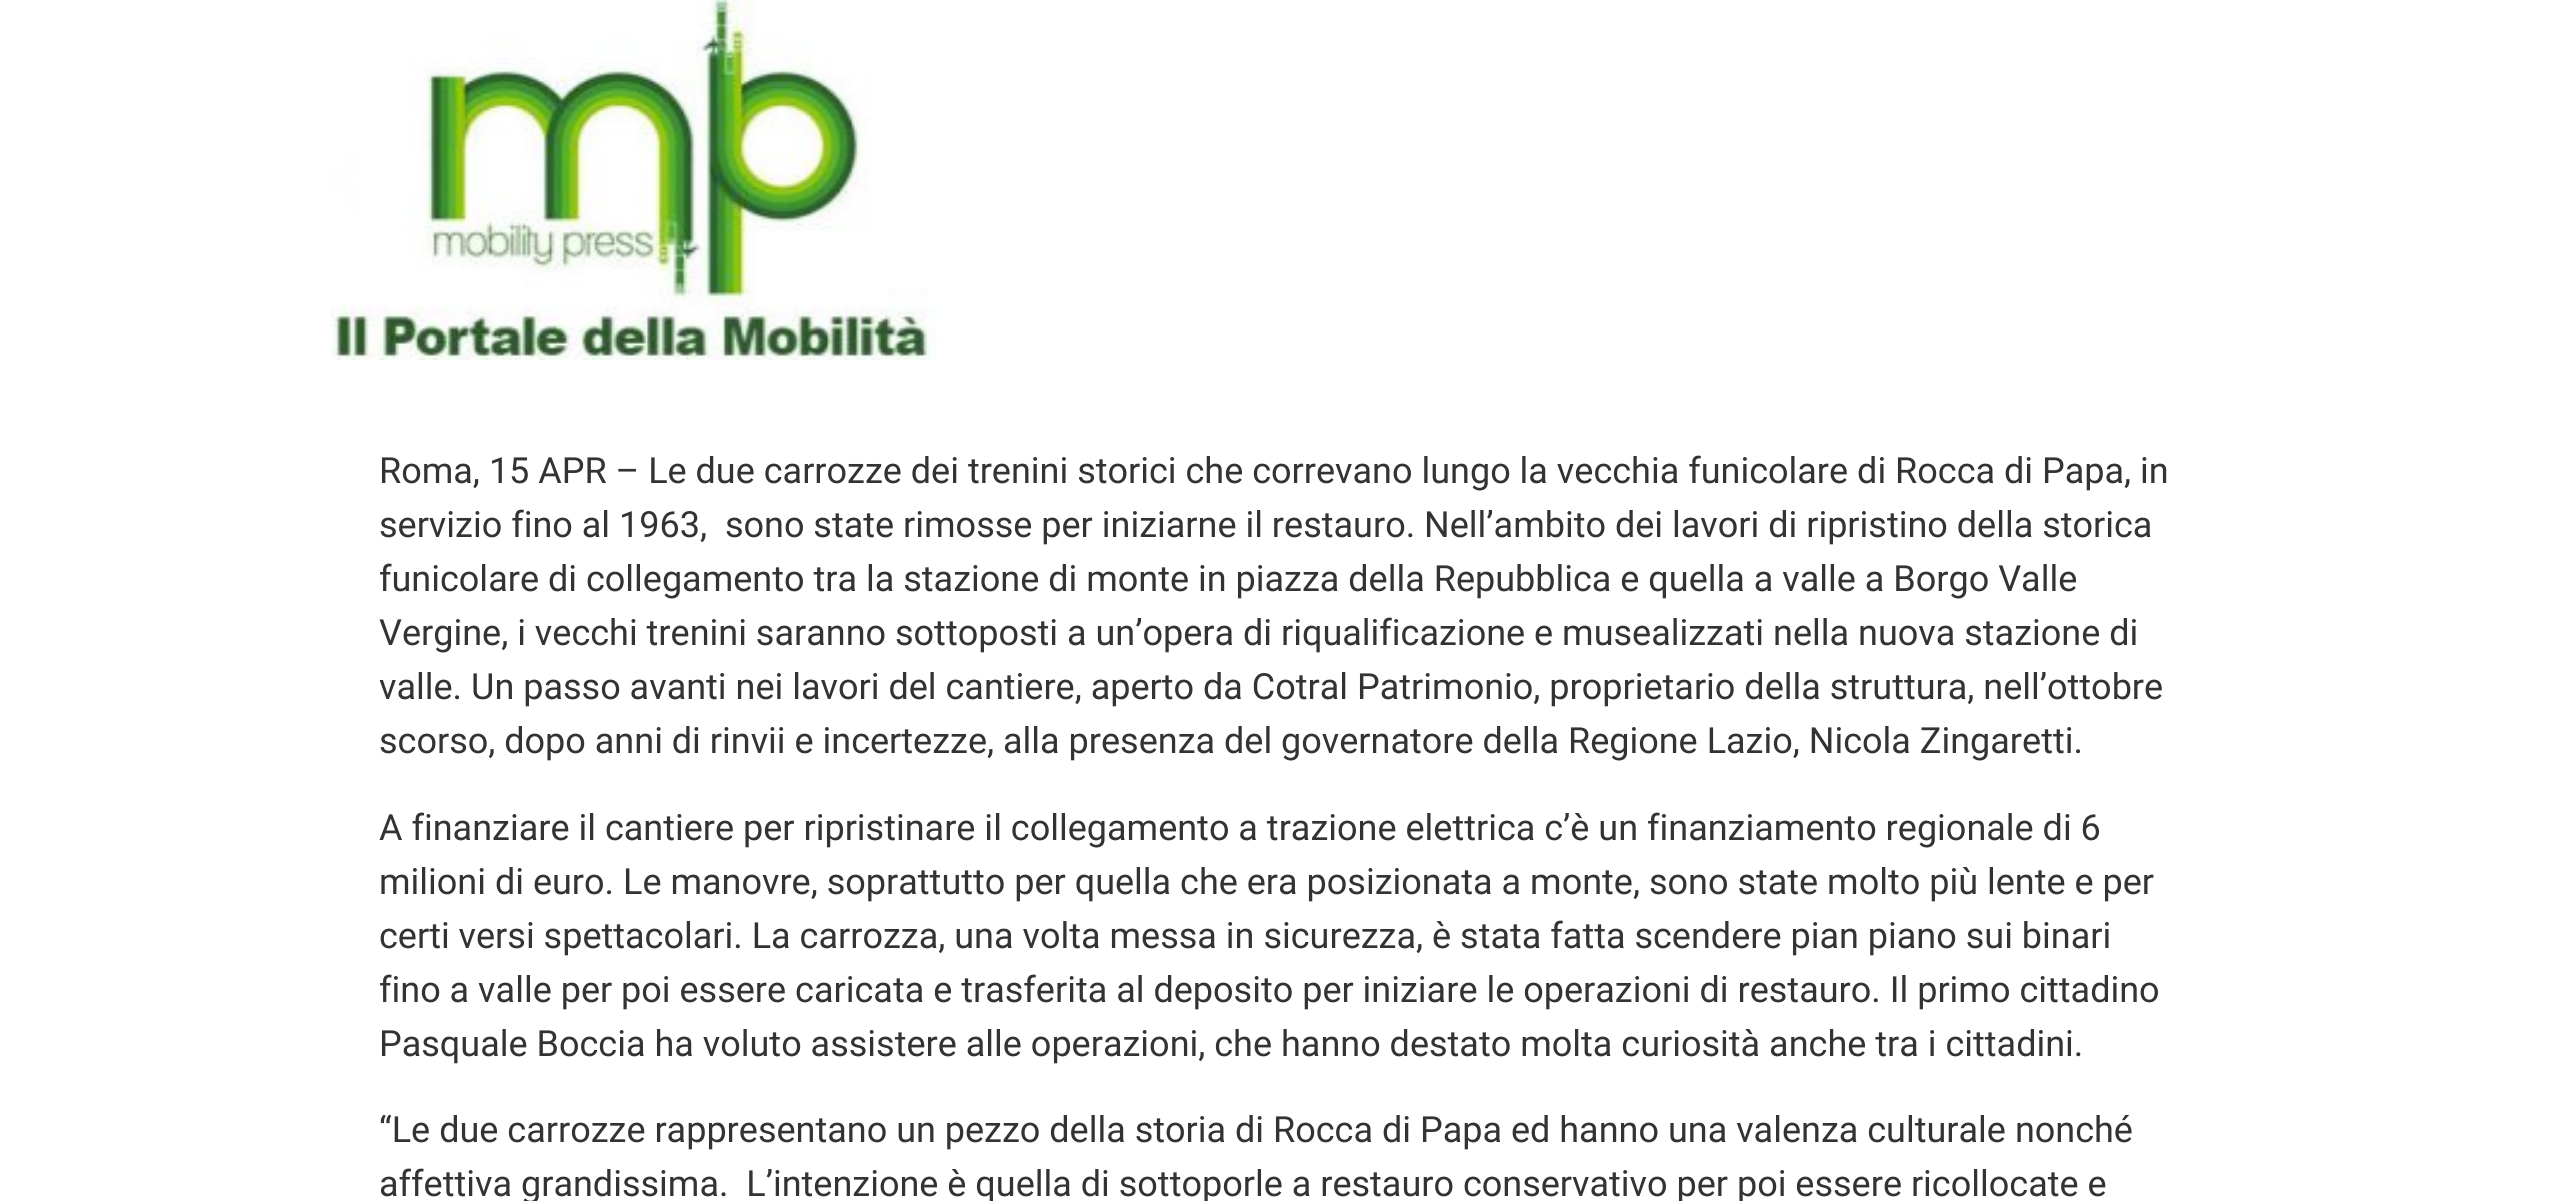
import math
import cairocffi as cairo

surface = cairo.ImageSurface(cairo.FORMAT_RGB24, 2557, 1201)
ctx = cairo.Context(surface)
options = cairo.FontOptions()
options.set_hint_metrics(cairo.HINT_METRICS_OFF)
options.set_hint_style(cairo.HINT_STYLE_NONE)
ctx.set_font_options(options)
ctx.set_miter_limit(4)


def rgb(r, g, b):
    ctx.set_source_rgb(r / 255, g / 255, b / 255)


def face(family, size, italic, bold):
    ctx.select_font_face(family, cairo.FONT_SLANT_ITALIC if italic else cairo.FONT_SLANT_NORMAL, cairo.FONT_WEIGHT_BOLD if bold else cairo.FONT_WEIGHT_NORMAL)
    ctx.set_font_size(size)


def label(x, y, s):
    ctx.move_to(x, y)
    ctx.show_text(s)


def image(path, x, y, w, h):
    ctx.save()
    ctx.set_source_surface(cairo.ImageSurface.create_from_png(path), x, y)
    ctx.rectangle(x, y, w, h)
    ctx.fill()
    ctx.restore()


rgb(255, 255, 255)
ctx.paint()
image('image0.png', 330, 0, 607, 360)
face('Roboto', 36, 0, 0)
rgb(51, 51, 51)
label(379, 483, 'Roma, 15 APR – Le due carrozze dei trenini storici che correvano lungo la vecchia funicolare di Rocca di Papa, in')
label(379, 537, 'servizio fino al 1963,  sono state rimosse per iniziarne il restauro. Nell’ambito dei lavori di ripristino della storica')
label(379, 591, 'funicolare di collegamento tra la stazione di monte in piazza della Repubblica e quella a valle a Borgo Valle')
label(379, 645, 'Vergine, i vecchi trenini saranno sottoposti a un’opera di riqualificazione e musealizzati nella nuova stazione di')
label(379, 699, 'valle. Un passo avanti nei lavori del cantiere, aperto da Cotral Patrimonio, proprietario della struttura, nell’ottobre')
label(379, 753, 'scorso, dopo anni di rinvii e incertezze, alla presenza del governatore della Regione Lazio, Nicola Zingaretti.')
label(379, 840, 'A finanziare il cantiere per ripristinare il collegamento a trazione elettrica c’è un finanziamento regionale di 6')
label(379, 894, 'milioni di euro. Le manovre, soprattutto per quella che era posizionata a monte, sono state molto più lente e per')
label(379, 948, 'certi versi spettacolari. La carrozza, una volta messa in sicurezza, è stata fatta scendere pian piano sui binari')
label(379, 1002, 'fino a valle per poi essere caricata e trasferita al deposito per iniziare le operazioni di restauro. Il primo cittadino')
label(379, 1056, 'Pasquale Boccia ha voluto assistere alle operazioni, che hanno destato molta curiosità anche tra i cittadini.')
label(379, 1142, '“Le due carrozze rappresentano un pezzo della storia di Rocca di Papa ed hanno una valenza culturale nonché')
label(379, 1196, 'affettiva grandissima.  L’intenzione è quella di sottoporle a restauro conservativo per poi essere ricollocate e')
surface.write_to_png('render.png')
